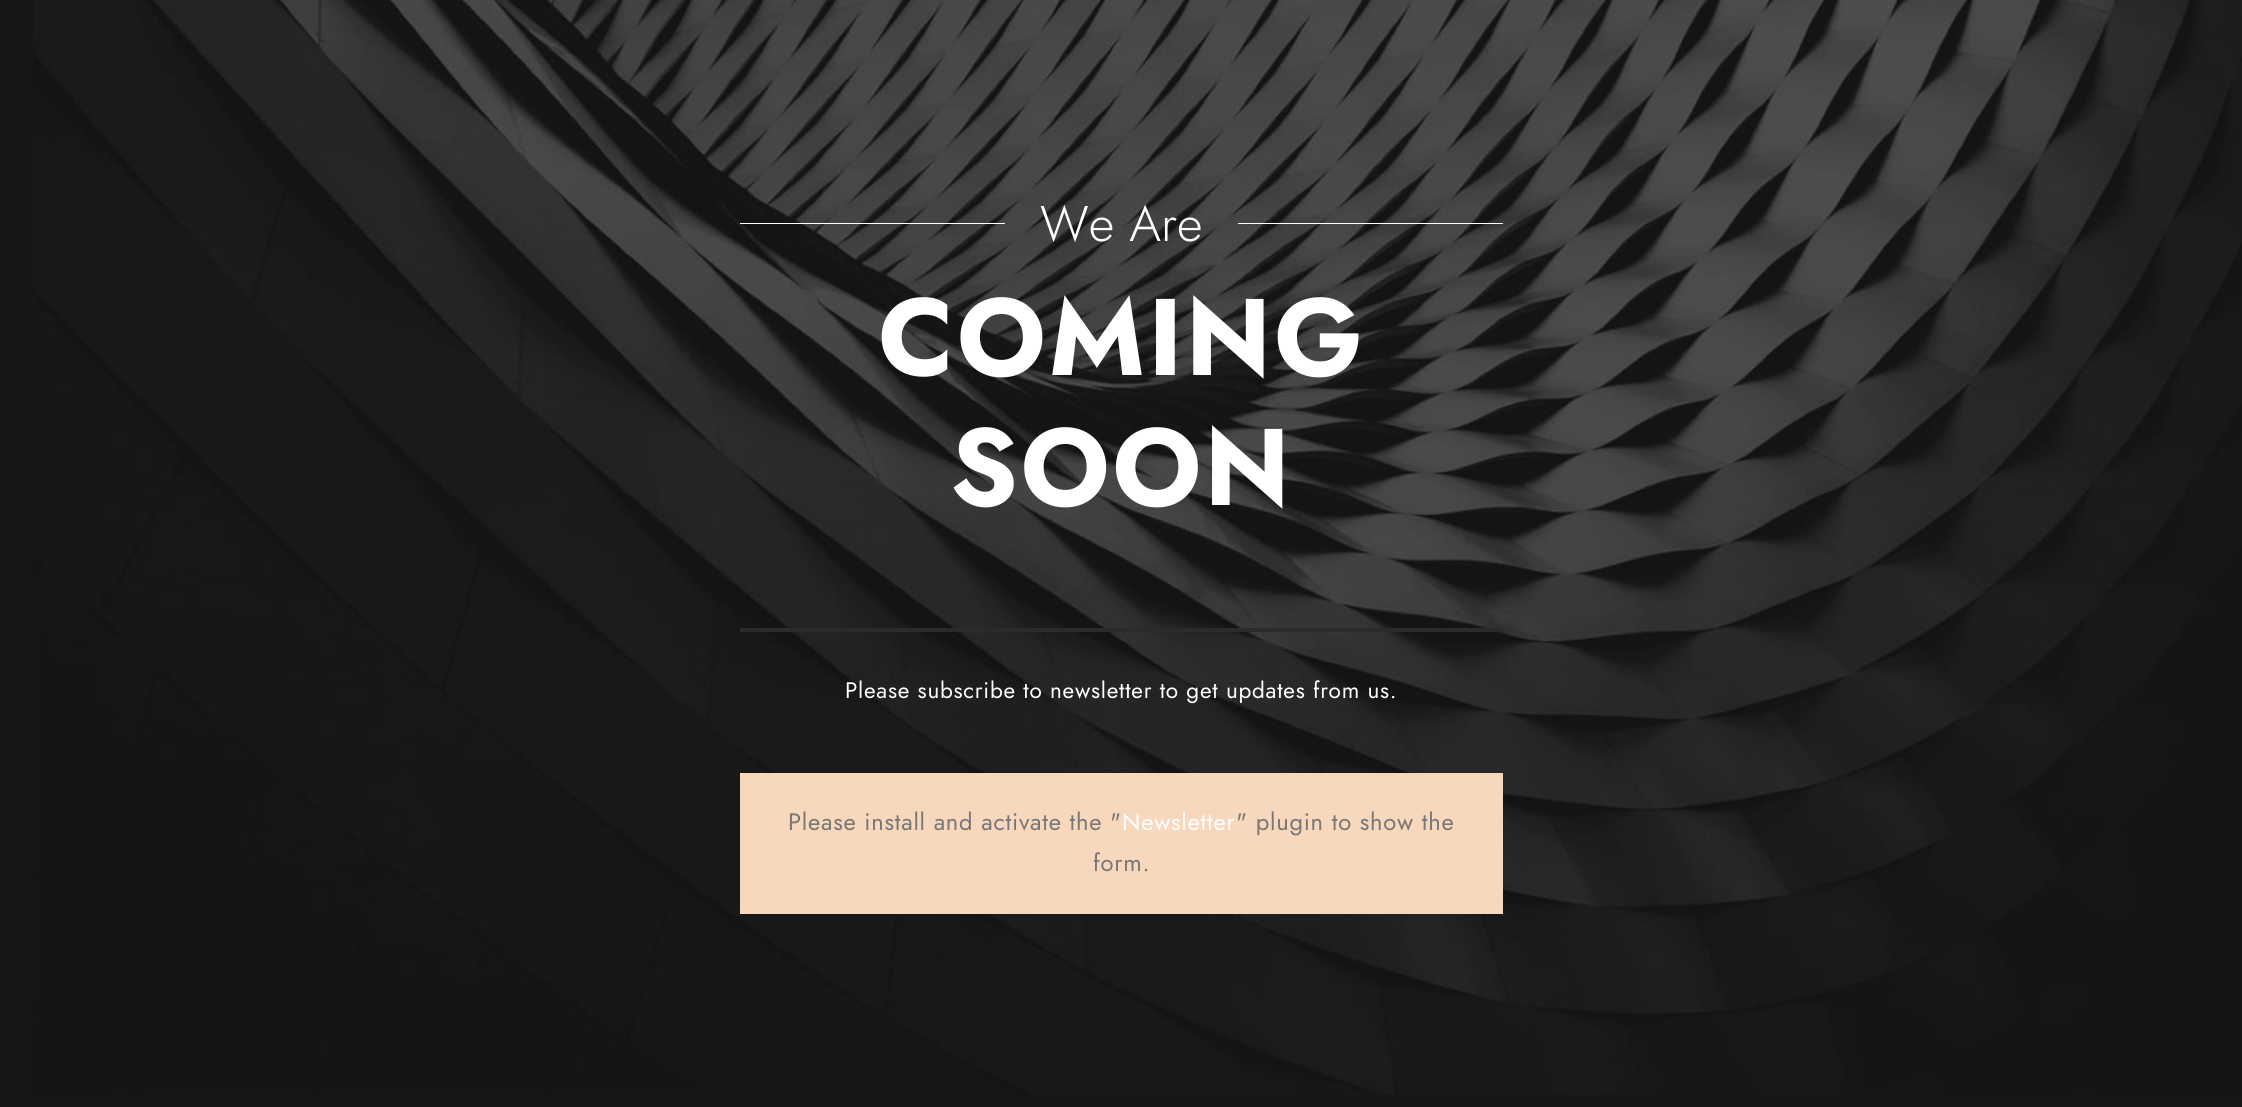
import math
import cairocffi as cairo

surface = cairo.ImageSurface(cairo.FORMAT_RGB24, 2242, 1107)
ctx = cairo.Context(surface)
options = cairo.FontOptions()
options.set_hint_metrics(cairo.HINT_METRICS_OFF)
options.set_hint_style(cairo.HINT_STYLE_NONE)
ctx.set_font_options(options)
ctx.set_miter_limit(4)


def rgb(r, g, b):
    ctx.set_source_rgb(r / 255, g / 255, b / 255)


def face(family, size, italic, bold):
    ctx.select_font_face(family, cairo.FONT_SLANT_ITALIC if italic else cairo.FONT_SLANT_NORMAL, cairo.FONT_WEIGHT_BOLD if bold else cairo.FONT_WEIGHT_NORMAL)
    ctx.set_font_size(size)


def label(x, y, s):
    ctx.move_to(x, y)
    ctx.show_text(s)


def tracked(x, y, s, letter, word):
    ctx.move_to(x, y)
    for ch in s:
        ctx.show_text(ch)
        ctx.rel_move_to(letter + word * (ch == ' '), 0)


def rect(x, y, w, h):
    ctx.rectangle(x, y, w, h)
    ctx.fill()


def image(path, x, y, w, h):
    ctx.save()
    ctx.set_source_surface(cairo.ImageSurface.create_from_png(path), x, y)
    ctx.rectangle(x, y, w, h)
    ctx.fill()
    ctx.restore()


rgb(22, 22, 22)
ctx.paint()
image('image0.png', 33, 0, 2209, 1095)
rgb(255, 255, 255)
rect(740, 223, 265, 1)
face('Jost Light', 50, 0, 0)
label(1040, 241, 'We Are')
rect(1238, 223, 265, 1)
face('Jost', 108.75, 0, 1)
tracked(878, 375, 'COMING', 2.5, 0)
tracked(950, 505, 'SOON', 2.5, 0)
rgb(43, 43, 43)
rect(740, 628, 763, 4)
face('Jost', 22.5, 0, 0)
rgb(255, 255, 255)
tracked(845, 698, 'Please subscribe to newsletter to get updates from us.', 0.75, 0)
rgb(247, 216, 188)
rect(740, 773, 763, 141)
face('Jost', 23.75, 0, 0)
rgb(119, 119, 119)
tracked(788, 830, 'Please install and activate the "', 0.75, 0)
rgb(255, 255, 255)
tracked(1122, 830, 'Newsletter', 0.75, 0)
rgb(119, 119, 119)
tracked(1236, 830, '" plugin to show the', 0.75, 0)
tracked(1093, 871, 'form.', 0.75, 0)
surface.write_to_png('render.png')
